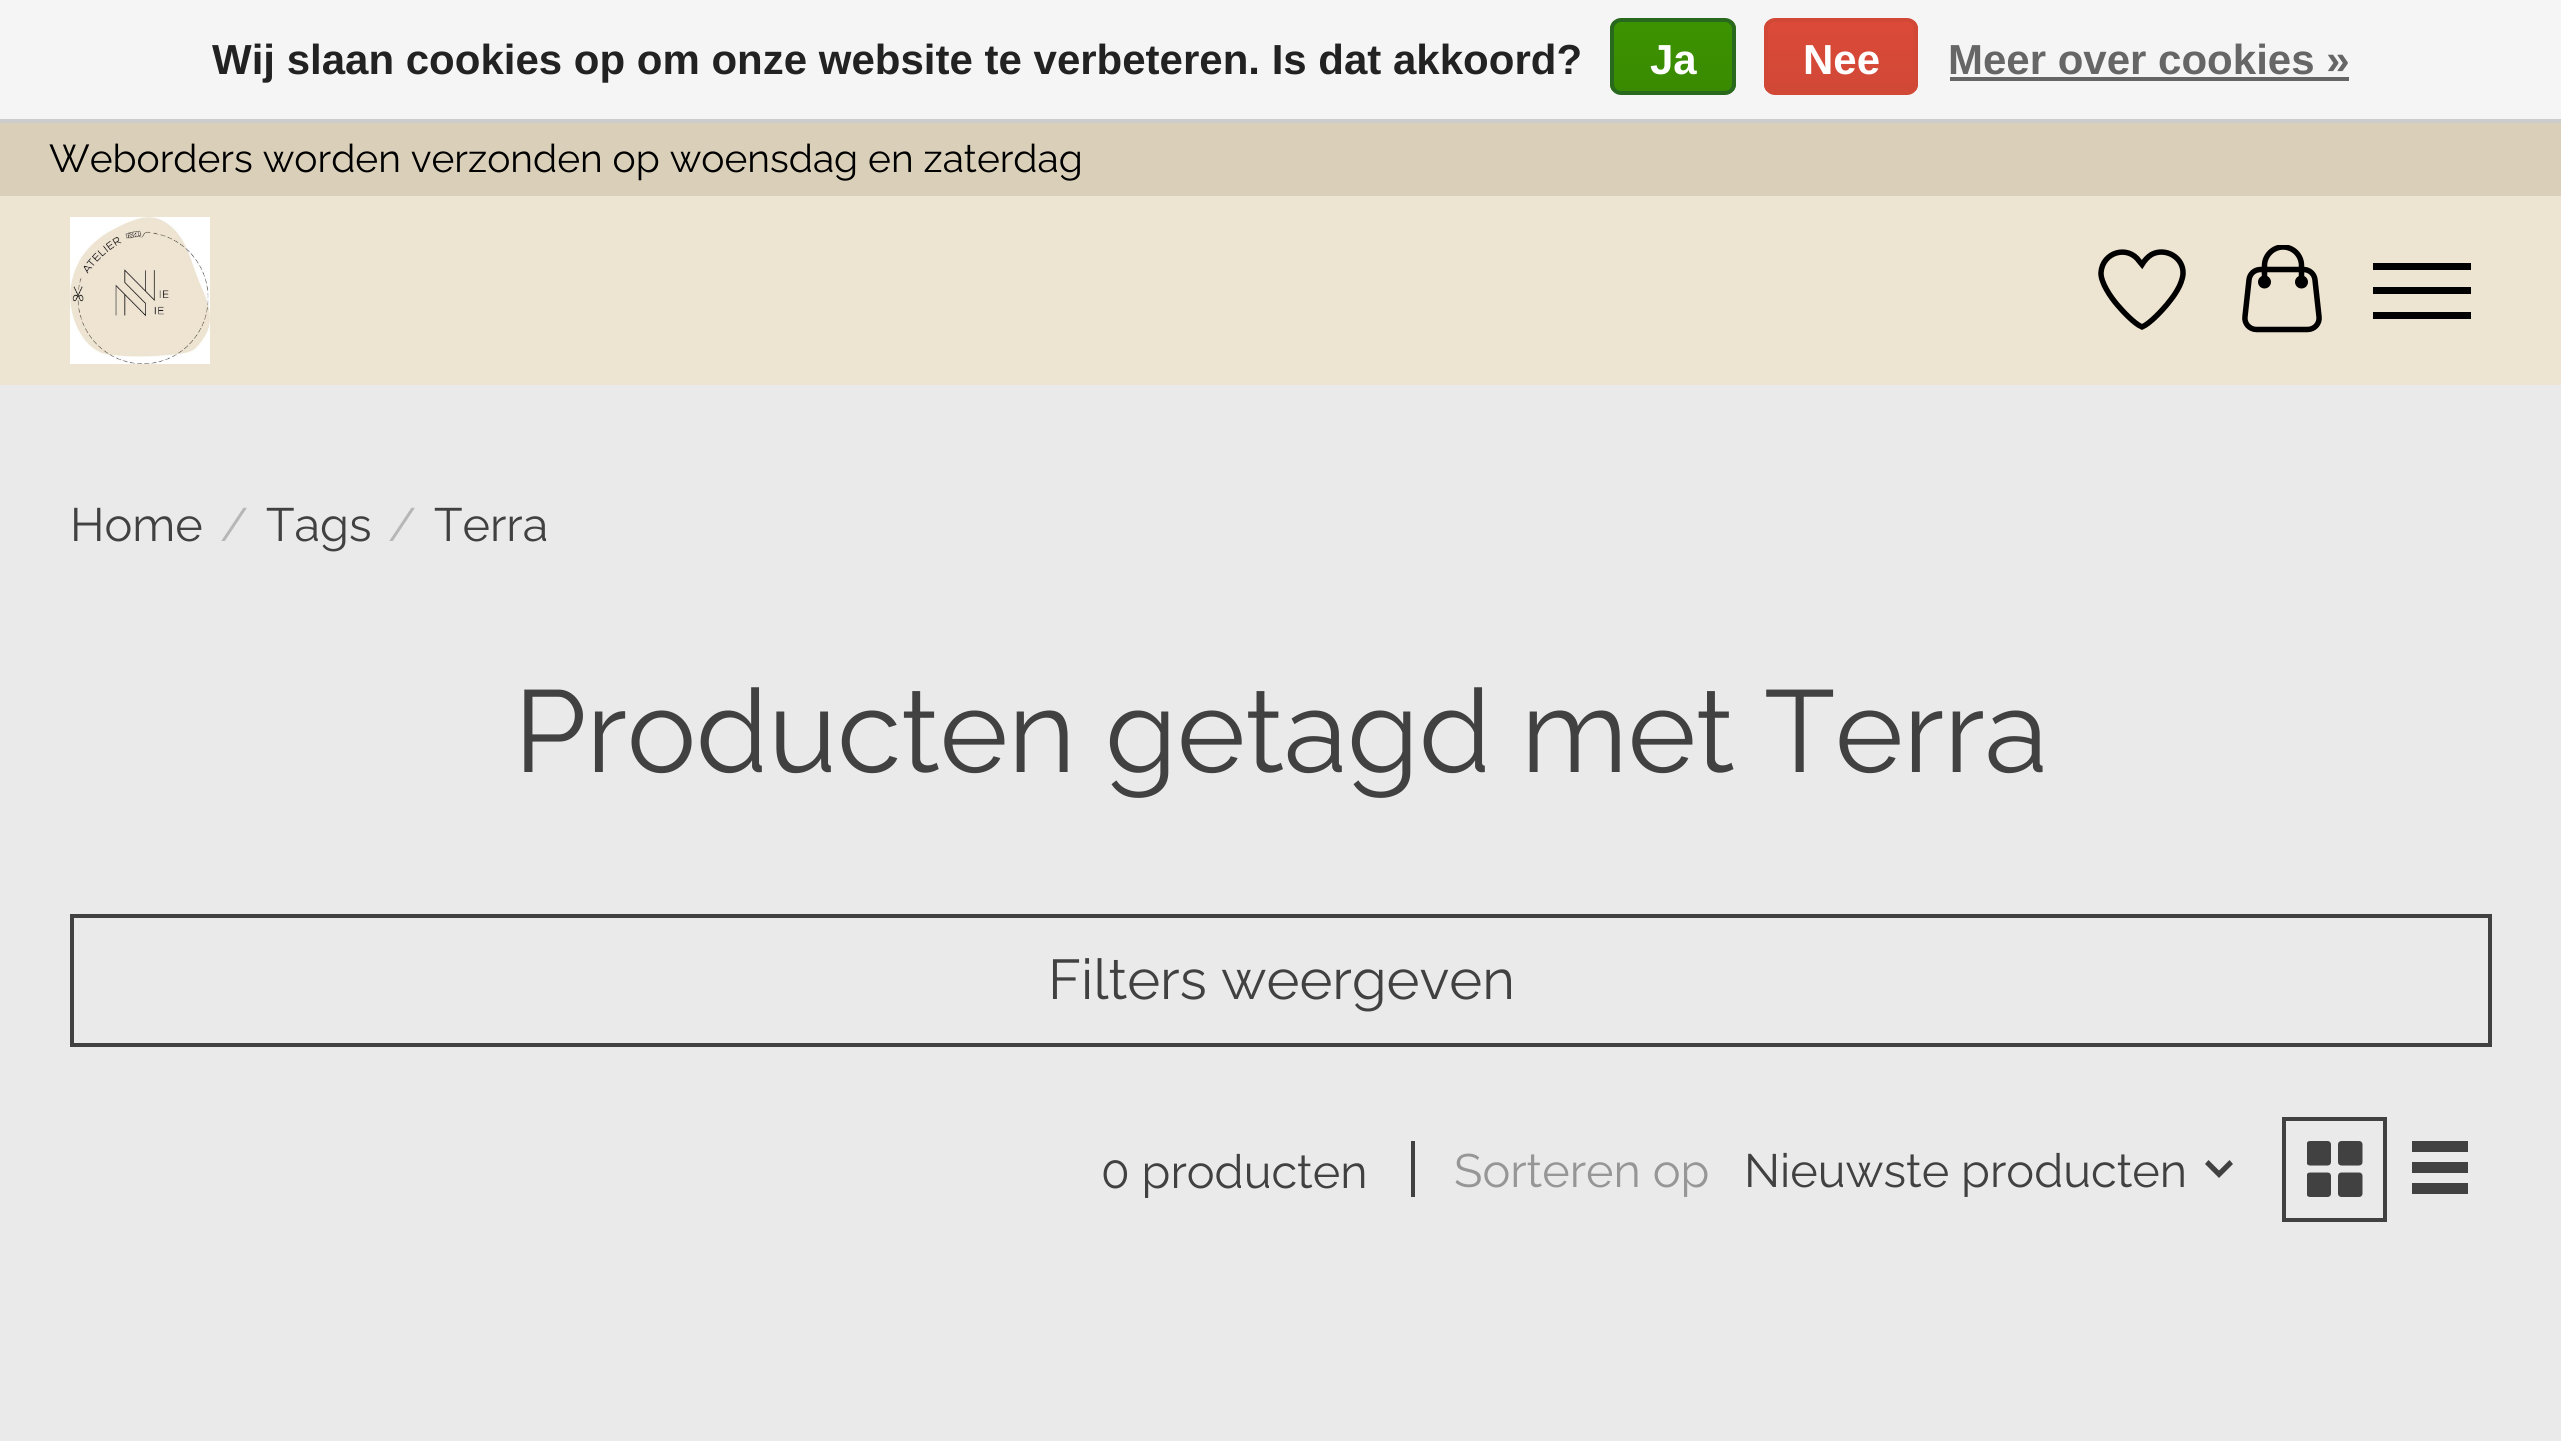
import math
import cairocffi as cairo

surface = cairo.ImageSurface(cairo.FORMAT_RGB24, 2561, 1441)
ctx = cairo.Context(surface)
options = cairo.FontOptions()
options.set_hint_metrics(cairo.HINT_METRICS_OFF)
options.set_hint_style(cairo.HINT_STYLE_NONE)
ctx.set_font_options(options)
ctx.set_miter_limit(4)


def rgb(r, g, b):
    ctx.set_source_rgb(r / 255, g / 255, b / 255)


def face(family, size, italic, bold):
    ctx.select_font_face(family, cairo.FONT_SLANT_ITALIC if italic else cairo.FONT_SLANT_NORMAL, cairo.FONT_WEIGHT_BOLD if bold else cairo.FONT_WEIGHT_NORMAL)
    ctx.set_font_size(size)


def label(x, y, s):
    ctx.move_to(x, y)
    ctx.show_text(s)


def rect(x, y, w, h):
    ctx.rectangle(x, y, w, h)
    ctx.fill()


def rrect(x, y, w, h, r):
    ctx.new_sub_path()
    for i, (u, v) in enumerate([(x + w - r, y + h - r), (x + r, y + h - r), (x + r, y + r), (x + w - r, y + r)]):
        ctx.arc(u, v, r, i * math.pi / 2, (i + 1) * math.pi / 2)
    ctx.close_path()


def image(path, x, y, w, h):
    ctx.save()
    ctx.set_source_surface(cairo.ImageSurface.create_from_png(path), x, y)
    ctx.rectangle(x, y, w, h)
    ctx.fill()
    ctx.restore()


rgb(234, 234, 234)
ctx.paint()
rgb(245, 245, 245)
rect(0, 0, 2561, 119)
rgb(204, 204, 204)
rect(0, 119, 2561, 4)
face('Liberation Sans', 42, 0, 1)
rgb(34, 34, 34)
label(212, 74, 'Wij slaan cookies op om onze website te verbeteren. Is dat akkoord?')
ctx.save()
rrect(1610, 18, 126, 77, 11)
ctx.clip()
gradient = cairo.LinearGradient(1673, 21, 1673, 91)
gradient.add_color_stop_rgba(0, 0.235, 0.576, 0, 1)
gradient.add_color_stop_rgba(1, 0.224, 0.541, 0, 1)
ctx.set_source(gradient)
rect(1610, 21, 126, 70)
ctx.restore()
rrect(1612, 20, 122, 73, 9)
rgb(41, 105, 29)
ctx.set_line_width(4)
ctx.stroke()
rgb(255, 255, 255)
label(1650, 74, 'Ja')
ctx.save()
rrect(1764, 18, 154, 77, 11)
ctx.clip()
gradient = cairo.LinearGradient(1841, 21, 1841, 91)
gradient.add_color_stop_rgba(0, 0.863, 0.29, 0.22, 1)
gradient.add_color_stop_rgba(1, 0.82, 0.282, 0.212, 1)
ctx.set_source(gradient)
rect(1764, 21, 154, 70)
ctx.restore()
rrect(1766, 20, 150, 73, 9)
rgb(209, 72, 54)
ctx.stroke()
rgb(255, 255, 255)
label(1803, 74, 'Nee')
rgb(102, 102, 102)
label(1948, 74, 'Meer over cookies »')
rect(1950, 77, 399, 4)
rgb(238, 228, 210)
rect(0, 196, 2561, 189)
rgb(218, 208, 186)
rect(0, 123, 2561, 73)
face('Raleway', 38.9, 0, 0)
rgb(0, 0, 0)
label(49, 172, 'Weborders worden verzonden op woensdag en zaterdag')
image('image0.png', 70, 217, 140, 147)
ctx.new_path()
ctx.move_to(2139.5, 261.5)
ctx.line_to(2142, 264.5)
ctx.curve_to(2144.5, 260.5, 2147.5, 257, 2151.5, 254.5)
ctx.curve_to(2165.5, 247, 2184, 257.5, 2183, 274)
ctx.curve_to(2182, 285, 2174, 296, 2167, 304.5)
ctx.curve_to(2161.5, 311, 2150, 323.5, 2142, 327)
ctx.curve_to(2134, 323.5, 2122.5, 311, 2117, 304.5)
ctx.curve_to(2111, 297.5, 2100.5, 282.5, 2101, 272.5)
ctx.curve_to(2102.5, 252, 2128, 244.5, 2139.5, 261.5)
ctx.close_path()
ctx.set_line_width(5.5)
ctx.stroke()
ctx.new_path()
ctx.move_to(2249, 280)
ctx.curve_to(2249.5, 274, 2254.5, 269.5, 2260.5, 269.5)
ctx.line_to(2303.5, 269.5)
ctx.curve_to(2309.5, 269.5, 2314.5, 274, 2315, 280)
ctx.line_to(2319, 316.5)
ctx.curve_to(2320, 323.5, 2314.5, 329.5, 2307.5, 329.5)
ctx.line_to(2256.5, 329.5)
ctx.curve_to(2249.5, 329.5, 2244, 323.5, 2245, 316.5)
ctx.close_path()
ctx.stroke()
ctx.save()
ctx.rectangle(2237, 245, 91, 91)
ctx.clip()
ctx.new_path()
ctx.move_to(2264.5, 280)
ctx.line_to(2264.5, 265.5)
ctx.curve_to(2264.5, 255.5, 2273, 247, 2283, 247)
ctx.curve_to(2293.5, 247, 2301.5, 255.5, 2301.5, 265.5)
ctx.line_to(2301.5, 280)
ctx.stroke()
ctx.restore()
ctx.arc(2264.5, 282, 6.5, 0, 2 * math.pi)
ctx.fill()
ctx.arc(2301.5, 282, 6.5, 0, 2 * math.pi)
ctx.fill()
rect(2373, 287, 98, 7)
rect(2373, 263, 98, 7)
rect(2373, 312, 98, 7)
face('Raleway', 46.75, 0, 0)
rgb(65, 65, 65)
label(70, 541, 'Home')
rgb(183, 183, 183)
label(220, 541, '/')
rgb(65, 65, 65)
label(266, 541, 'Tags')
rgb(183, 183, 183)
label(388, 541, '/')
rgb(65, 65, 65)
label(434, 541, 'Terra')
face('Raleway', 116.1, 0, 0)
label(514, 772, 'Producten getagd met Terra')
ctx.rectangle(72, 916, 2418, 129)
ctx.set_line_width(4)
ctx.stroke()
face('Raleway', 56, 0, 0)
label(1048, 999, 'Filters weergeven')
face('Raleway', 46.75, 0, 0)
label(1101, 1188, '0 producten')
rect(1411, 1141, 4, 56)
rgb(150, 150, 150)
label(1454, 1187, 'Sorteren op')
rgb(65, 65, 65)
label(1744, 1187, 'Nieuwste producten')
ctx.new_path()
ctx.move_to(2219, 1178)
ctx.line_to(2205, 1164)
ctx.line_to(2208.5, 1160)
ctx.line_to(2219, 1170.5)
ctx.line_to(2229.5, 1160)
ctx.line_to(2233, 1164)
ctx.close_path()
ctx.fill()
ctx.rectangle(2284, 1119, 101, 101)
ctx.stroke()
image('image1.png', 2307, 1141, 56, 56)
rect(2412, 1141, 56, 11)
rect(2412, 1162, 56, 11)
rect(2412, 1183, 56, 11)
surface.write_to_png('render.png')
